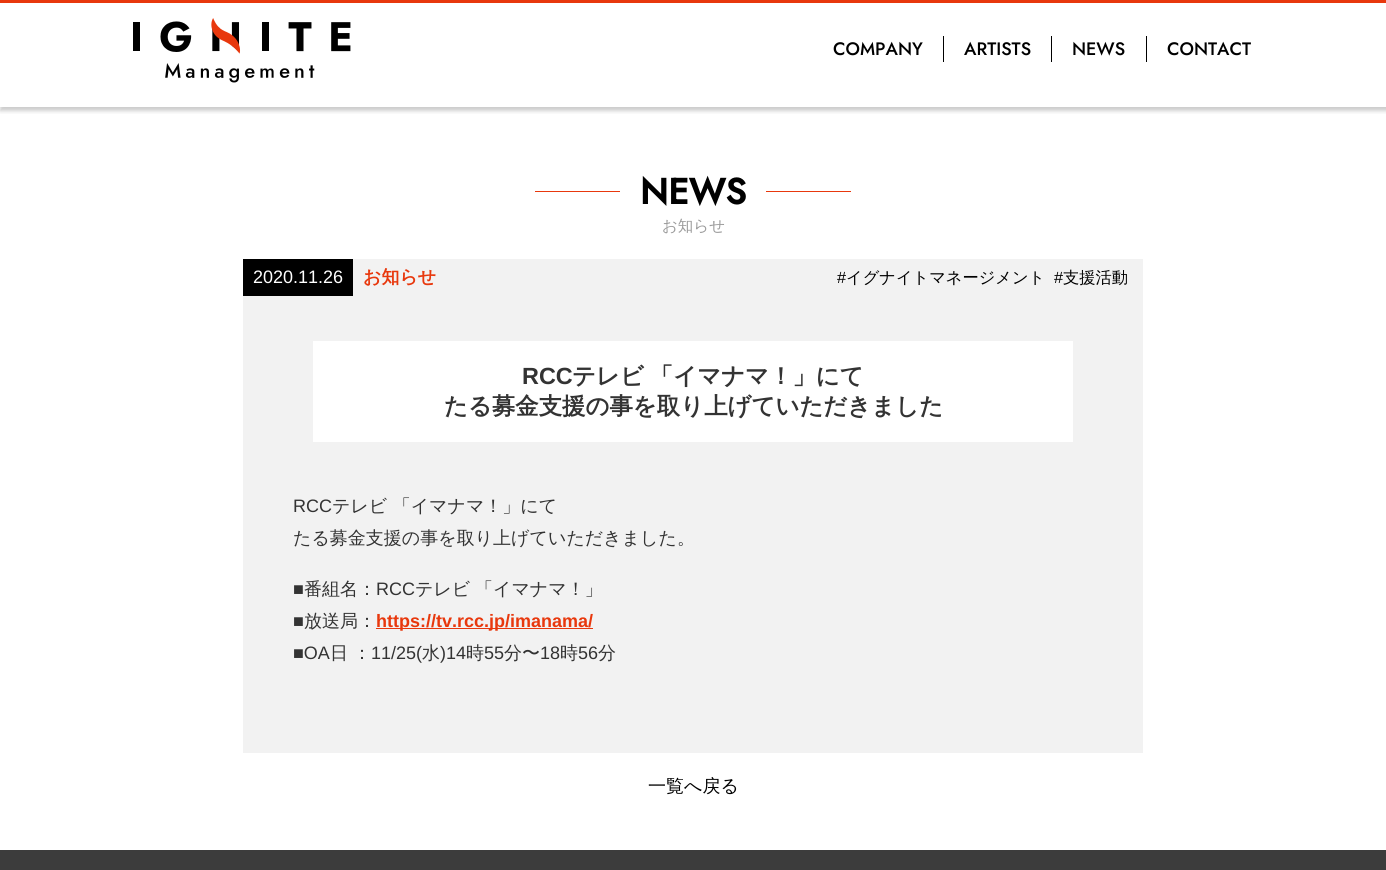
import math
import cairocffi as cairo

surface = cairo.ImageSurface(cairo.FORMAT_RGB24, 1386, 870)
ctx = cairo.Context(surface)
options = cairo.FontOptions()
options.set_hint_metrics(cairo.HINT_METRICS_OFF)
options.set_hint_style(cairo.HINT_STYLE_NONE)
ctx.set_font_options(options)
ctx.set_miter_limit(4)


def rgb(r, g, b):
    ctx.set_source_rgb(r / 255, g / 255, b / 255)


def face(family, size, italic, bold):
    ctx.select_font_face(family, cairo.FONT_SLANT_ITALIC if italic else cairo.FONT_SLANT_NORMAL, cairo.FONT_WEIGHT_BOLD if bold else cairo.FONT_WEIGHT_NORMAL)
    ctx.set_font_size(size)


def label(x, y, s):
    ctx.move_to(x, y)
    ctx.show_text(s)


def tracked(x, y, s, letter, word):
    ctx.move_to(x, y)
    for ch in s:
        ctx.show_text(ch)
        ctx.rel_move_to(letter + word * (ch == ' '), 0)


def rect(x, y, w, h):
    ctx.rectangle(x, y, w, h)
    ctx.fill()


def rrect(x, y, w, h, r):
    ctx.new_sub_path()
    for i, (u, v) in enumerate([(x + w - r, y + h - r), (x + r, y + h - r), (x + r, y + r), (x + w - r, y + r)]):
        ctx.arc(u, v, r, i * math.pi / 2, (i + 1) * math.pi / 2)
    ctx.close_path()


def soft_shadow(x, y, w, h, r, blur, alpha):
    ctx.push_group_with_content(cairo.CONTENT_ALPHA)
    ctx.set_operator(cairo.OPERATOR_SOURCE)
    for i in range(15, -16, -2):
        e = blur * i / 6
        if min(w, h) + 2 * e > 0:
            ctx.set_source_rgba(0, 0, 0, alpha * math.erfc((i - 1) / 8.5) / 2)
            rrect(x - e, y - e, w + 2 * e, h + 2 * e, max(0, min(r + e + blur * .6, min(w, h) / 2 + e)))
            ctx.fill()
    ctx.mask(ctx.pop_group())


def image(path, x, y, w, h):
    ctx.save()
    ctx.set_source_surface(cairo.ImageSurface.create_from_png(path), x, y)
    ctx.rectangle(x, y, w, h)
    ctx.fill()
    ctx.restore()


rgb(255, 255, 255)
ctx.paint()
ctx.save()
ctx.rectangle(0, 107, 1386, 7)
ctx.clip()
rgb(0, 0, 0)
soft_shadow(0, 4, 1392, 107, 0, 2, 0.2)
ctx.restore()
rgb(232, 56, 13)
rect(0, 0, 1386, 3)
image('image0.png', 133, 18, 218, 65)
face('Jost Medium', 18, 0, 0)
rgb(0, 0, 0)
label(833, 55, 'COMPANY')
rect(943, 36, 1, 26)
label(964, 55, 'ARTISTS')
rect(1051, 36, 1, 26)
label(1072, 55, 'NEWS')
rect(1146, 36, 1, 26)
label(1167, 55, 'CONTACT')
rgb(232, 56, 13)
rect(535, 191, 85, 1)
face('Jost', 36, 0, 1)
rgb(0, 0, 0)
label(640, 204, 'NEWS')
rgb(232, 56, 13)
rect(766, 191, 85, 1)
face('WenQuanYi Zen Hei Medium', 15.5, 0, 0)
rgb(155, 155, 155)
label(662, 231, 'お知らせ')
rgb(242, 242, 242)
rect(243, 259, 900, 494)
rgb(0, 0, 0)
rect(243, 259, 110, 37)
face('Liberation Sans', 18, 0, 0)
rgb(255, 255, 255)
label(253, 283, '2020.11.26')
face('WenQuanYi Zen Hei', 18, 0, 1)
rgb(232, 56, 13)
label(363, 283, 'お知らせ')
face('Liberation Sans', 16.25, 0, 0)
rgb(0, 0, 0)
label(837, 283, '#')
face('WenQuanYi Zen Hei Medium', 16.25, 0, 0)
label(846, 283, 'イグナイトマネージメント')
face('Liberation Sans', 16.25, 0, 0)
label(1054, 283, '#')
face('WenQuanYi Zen Hei Medium', 16.25, 0, 0)
label(1063, 283, '支援活動')
rgb(255, 255, 255)
rect(313, 341, 760, 101)
face('Liberation Sans', 23.4, 0, 1)
rgb(51, 51, 51)
label(522, 384, 'RCC')
face('WenQuanYi Zen Hei', 23.4, 0, 1)
tracked(572, 384, 'テレビ 「イマナマ！」にて', 0, -1)
label(444, 414, 'たる募金支援の事を取り上げていただきました')
face('Liberation Sans', 18, 0, 0)
label(293, 512, 'RCC')
face('WenQuanYi Zen Hei Medium', 18, 0, 0)
label(332, 512, 'テレビ 「イマナマ！」にて')
label(293, 544, 'たる募金支援の事を取り上げていただきました。')
face('Liberation Sans', 18, 0, 0)
label(293, 595, '■')
face('WenQuanYi Zen Hei Medium', 18, 0, 0)
label(304, 595, '番組名：')
face('Liberation Sans', 18, 0, 0)
label(376, 595, 'RCC')
face('WenQuanYi Zen Hei Medium', 18, 0, 0)
label(415, 595, 'テレビ')
label(475, 595, '「イマナマ！」')
face('Liberation Sans', 18, 0, 0)
label(293, 627, '■')
face('WenQuanYi Zen Hei Medium', 18, 0, 0)
label(304, 627, '放送局：')
rgb(232, 56, 13)
rect(376, 628, 217, 1)
face('Liberation Sans', 18, 0, 1)
label(376, 627, 'https://tv.rcc.jp/imanama/')
face('Liberation Sans', 18, 0, 0)
rgb(51, 51, 51)
label(293, 659, '■OA')
face('WenQuanYi Zen Hei Medium', 18, 0, 0)
label(330, 659, '日')
label(353, 659, '：')
face('Liberation Sans', 18, 0, 0)
label(371, 659, '11/25(')
face('WenQuanYi Zen Hei Medium', 18, 0, 0)
label(422, 659, '水')
face('Liberation Sans', 18, 0, 0)
label(440, 659, ')14')
face('WenQuanYi Zen Hei Medium', 18, 0, 0)
label(466, 659, '時')
face('Liberation Sans', 18, 0, 0)
label(484, 659, '55')
face('WenQuanYi Zen Hei Medium', 18, 0, 0)
label(504, 659, '分〜')
face('Liberation Sans', 18, 0, 0)
label(540, 659, '18')
face('WenQuanYi Zen Hei Medium', 18, 0, 0)
label(560, 659, '時')
face('Liberation Sans', 18, 0, 0)
label(578, 659, '56')
face('WenQuanYi Zen Hei Medium', 18, 0, 0)
label(598, 659, '分')
rgb(0, 0, 0)
label(648, 792, '一覧へ戻る')
rgb(60, 60, 60)
rect(0, 850, 1386, 20)
surface.write_to_png('render.png')
